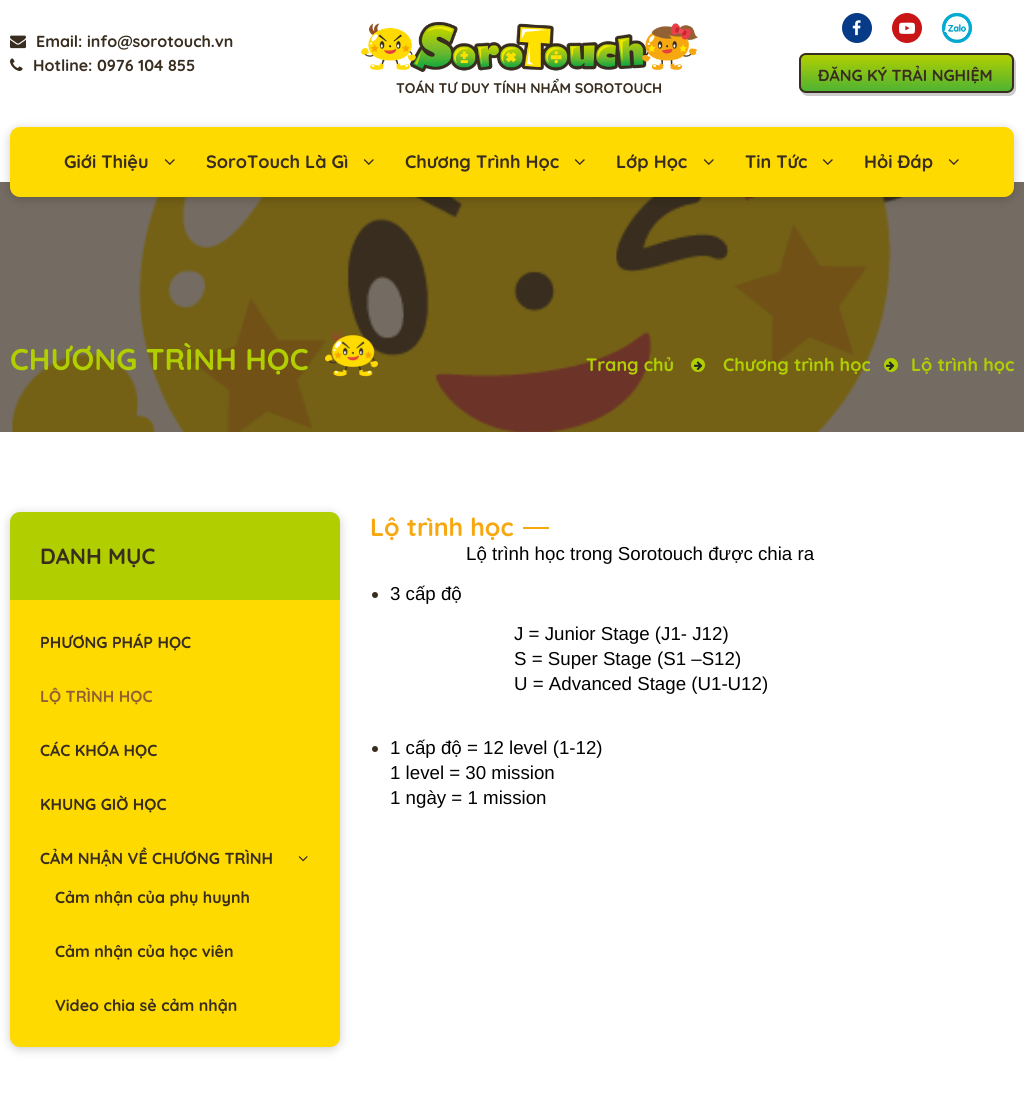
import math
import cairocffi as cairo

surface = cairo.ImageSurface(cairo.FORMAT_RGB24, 1024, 1109)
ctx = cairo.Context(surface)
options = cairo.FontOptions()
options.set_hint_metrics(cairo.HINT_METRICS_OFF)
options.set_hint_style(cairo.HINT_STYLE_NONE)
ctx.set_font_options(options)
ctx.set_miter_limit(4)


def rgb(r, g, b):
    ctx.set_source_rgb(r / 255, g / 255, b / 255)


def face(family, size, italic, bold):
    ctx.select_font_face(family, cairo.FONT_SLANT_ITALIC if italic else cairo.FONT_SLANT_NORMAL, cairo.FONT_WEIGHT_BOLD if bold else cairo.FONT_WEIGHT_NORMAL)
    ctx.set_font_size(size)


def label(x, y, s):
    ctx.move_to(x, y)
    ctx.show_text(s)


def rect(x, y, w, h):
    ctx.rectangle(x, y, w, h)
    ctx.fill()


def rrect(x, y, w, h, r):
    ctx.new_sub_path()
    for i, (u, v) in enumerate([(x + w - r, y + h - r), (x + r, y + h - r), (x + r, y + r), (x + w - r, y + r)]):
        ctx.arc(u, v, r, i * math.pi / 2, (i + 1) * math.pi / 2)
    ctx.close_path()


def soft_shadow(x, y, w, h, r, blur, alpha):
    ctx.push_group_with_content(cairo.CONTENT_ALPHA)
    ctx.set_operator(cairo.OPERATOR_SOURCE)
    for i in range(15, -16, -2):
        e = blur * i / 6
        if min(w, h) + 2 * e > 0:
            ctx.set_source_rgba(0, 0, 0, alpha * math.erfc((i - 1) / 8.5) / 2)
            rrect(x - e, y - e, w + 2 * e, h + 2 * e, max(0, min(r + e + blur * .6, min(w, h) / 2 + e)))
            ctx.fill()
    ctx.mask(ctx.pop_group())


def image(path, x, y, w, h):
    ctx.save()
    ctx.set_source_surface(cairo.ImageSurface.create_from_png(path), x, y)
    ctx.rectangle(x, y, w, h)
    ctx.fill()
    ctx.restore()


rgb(255, 255, 255)
ctx.paint()
rgb(116, 108, 98)
rect(0, 182, 1024, 250)
image('image0.png', 10, 35, 16, 14)
face('Quicksand', 16, 0, 1)
rgb(56, 45, 31)
label(36, 47, 'Email: info@sorotouch.vn')
image('image1.png', 10, 58, 13, 13)
label(33, 71, 'Hotline: 0976 104 855')
rgb(7, 58, 135)
ctx.new_path()
ctx.arc(857, 28, 15, 0, 2 * math.pi)
ctx.fill()
image('image2.png', 852, 20, 9, 16)
rgb(201, 21, 21)
ctx.arc(907, 28, 15, 0, 2 * math.pi)
ctx.fill()
image('image3.png', 899, 22, 16, 12)
rgb(62, 156, 223)
ctx.arc(957, 28, 15, 0, 2 * math.pi)
ctx.fill()
image('image4.png', 942, 13, 30, 30)
rgb(204, 204, 204)
ctx.new_path()
ctx.move_to(801, 91)
ctx.curve_to(802, 94, 805, 96, 808, 96)
ctx.line_to(1009, 96)
ctx.curve_to(1013, 96, 1016, 93, 1016, 89)
ctx.line_to(1016, 63)
ctx.curve_to(1016, 61, 1015, 59, 1014, 58)
ctx.line_to(1014, 86)
ctx.curve_to(1014, 90, 1011, 93, 1007, 93)
ctx.line_to(806, 93)
ctx.curve_to(804, 93, 803, 92, 801, 91)
ctx.close_path()
ctx.fill()
ctx.save()
rrect(799, 53, 215, 40, 7)
ctx.clip()
gradient = cairo.LinearGradient(907, 55, 907, 91)
gradient.add_color_stop_rgba(0, 0.694, 0.812, 0, 1)
gradient.add_color_stop_rgba(1, 0.31, 0.702, 0.196, 1)
ctx.set_source(gradient)
rect(799, 55, 215, 36)
ctx.restore()
rrect(800, 54, 213, 38, 6)
rgb(56, 45, 31)
ctx.stroke()
label(818, 81, 'ĐĂNG KÝ TRẢI NGHIỆM')
image('image5.png', 361, 22, 337, 50)
face('Quicksand', 14, 0, 1)
label(396, 93, 'TOÁN TƯ DUY TÍNH NHẨM SOROTOUCH')
image('image7.png', 11, 197, 893, 235)
rgb(0, 0, 0)
soft_shadow(10, 129, 1004, 70, 10, 5, 0.2)
rgb(255, 218, 0)
rrect(10, 127, 1004, 70, 10)
ctx.fill()
face('Quicksand', 18, 0, 1)
rgb(56, 45, 31)
label(64, 168, 'Giới Thiệu')
image('image6.png', 164, 159, 11, 6)
label(206, 168, 'SoroTouch Là Gì')
image('image6.png', 363, 159, 11, 6)
label(405, 168, 'Chương Trình Học')
image('image6.png', 574, 159, 11, 6)
label(616, 168, 'Lớp Học')
image('image6.png', 703, 159, 11, 6)
label(745, 168, 'Tin Tức')
image('image6.png', 822, 159, 11, 6)
label(864, 168, 'Hỏi Đáp')
image('image6.png', 948, 159, 11, 6)
face('Quicksand', 30, 0, 1)
rgb(177, 207, 0)
label(10, 370, 'CHƯƠNG TRÌNH HỌC')
image('image8.png', 325, 331, 53, 46)
face('Quicksand', 18, 0, 1)
label(586, 371, 'Trang chủ')
ctx.new_path()
ctx.arc(698, 365, 7, 0, 2 * math.pi)
ctx.fill()
image('image9.png', 694, 361, 9, 10)
label(723, 371, 'Chương trình học')
ctx.new_path()
ctx.arc(891, 365, 7, 0, 2 * math.pi)
ctx.fill()
image('image10.png', 886, 361, 9, 10)
label(911, 371, 'Lộ trình học')
rgb(0, 0, 0)
soft_shadow(10, 514, 330, 535, 10, 5, 0.2)
rgb(177, 207, 0)
ctx.new_path()
ctx.move_to(20, 512)
ctx.line_to(330, 512)
ctx.curve_to(335.5, 512, 340, 516.5, 340, 522)
ctx.line_to(340, 600)
ctx.line_to(10, 600)
ctx.line_to(10, 522)
ctx.curve_to(10, 516.5, 14.5, 512, 20, 512)
ctx.close_path()
ctx.fill()
face('Quicksand', 22, 0, 1)
rgb(56, 45, 31)
label(40, 564, 'DANH MỤC')
rgb(255, 218, 0)
ctx.new_path()
ctx.move_to(10, 600)
ctx.line_to(340, 600)
ctx.line_to(340, 1037)
ctx.curve_to(340, 1042.5, 335.5, 1047, 330, 1047)
ctx.line_to(20, 1047)
ctx.curve_to(14.5, 1047, 10, 1042.5, 10, 1037)
ctx.close_path()
ctx.fill()
face('Quicksand', 16, 0, 1)
rgb(56, 45, 31)
label(40, 648, 'PHƯƠNG PHÁP HỌC')
rgb(145, 97, 52)
label(40, 702, 'LỘ TRÌNH HỌC')
rgb(56, 45, 31)
label(40, 756, 'CÁC KHÓA HỌC')
label(40, 810, 'KHUNG GIỜ HỌC')
label(40, 864, 'CẢM NHẬN VỀ CHƯƠNG TRÌNH')
image('image11.png', 298, 856, 10, 6)
label(55, 903, 'Cảm nhận của phụ huynh')
label(55, 957, 'Cảm nhận của học viên')
label(55, 1011, 'Video chia sẻ cảm nhận')
face('Quicksand', 25, 0, 1)
rgb(246, 168, 17)
label(370, 536, 'Lộ trình học')
rect(523, 527, 26, 2)
face('Liberation Sans', 18.7, 0, 0)
rgb(0, 0, 0)
label(466, 560, 'Lộ trình học trong Sorotouch được chia ra')
rgb(56, 45, 31)
ctx.new_path()
ctx.arc(375, 595, 3, 0, 2 * math.pi)
ctx.fill()
rgb(0, 0, 0)
label(390, 600, '3 cấp độ')
label(514, 640, 'J = Junior Stage (J1- J12)')
label(514, 665, 'S = Super Stage (S1 –S12)')
label(514, 690, 'U = Advanced Stage (U1-U12)')
rgb(56, 45, 31)
ctx.new_path()
ctx.arc(375, 749, 3, 0, 2 * math.pi)
ctx.fill()
rgb(0, 0, 0)
label(390, 754, '1 cấp độ = 12 level (1-12)')
label(390, 779, '1 level = 30 mission')
label(390, 804, '1 ngày = 1 mission')
surface.write_to_png('render.png')
